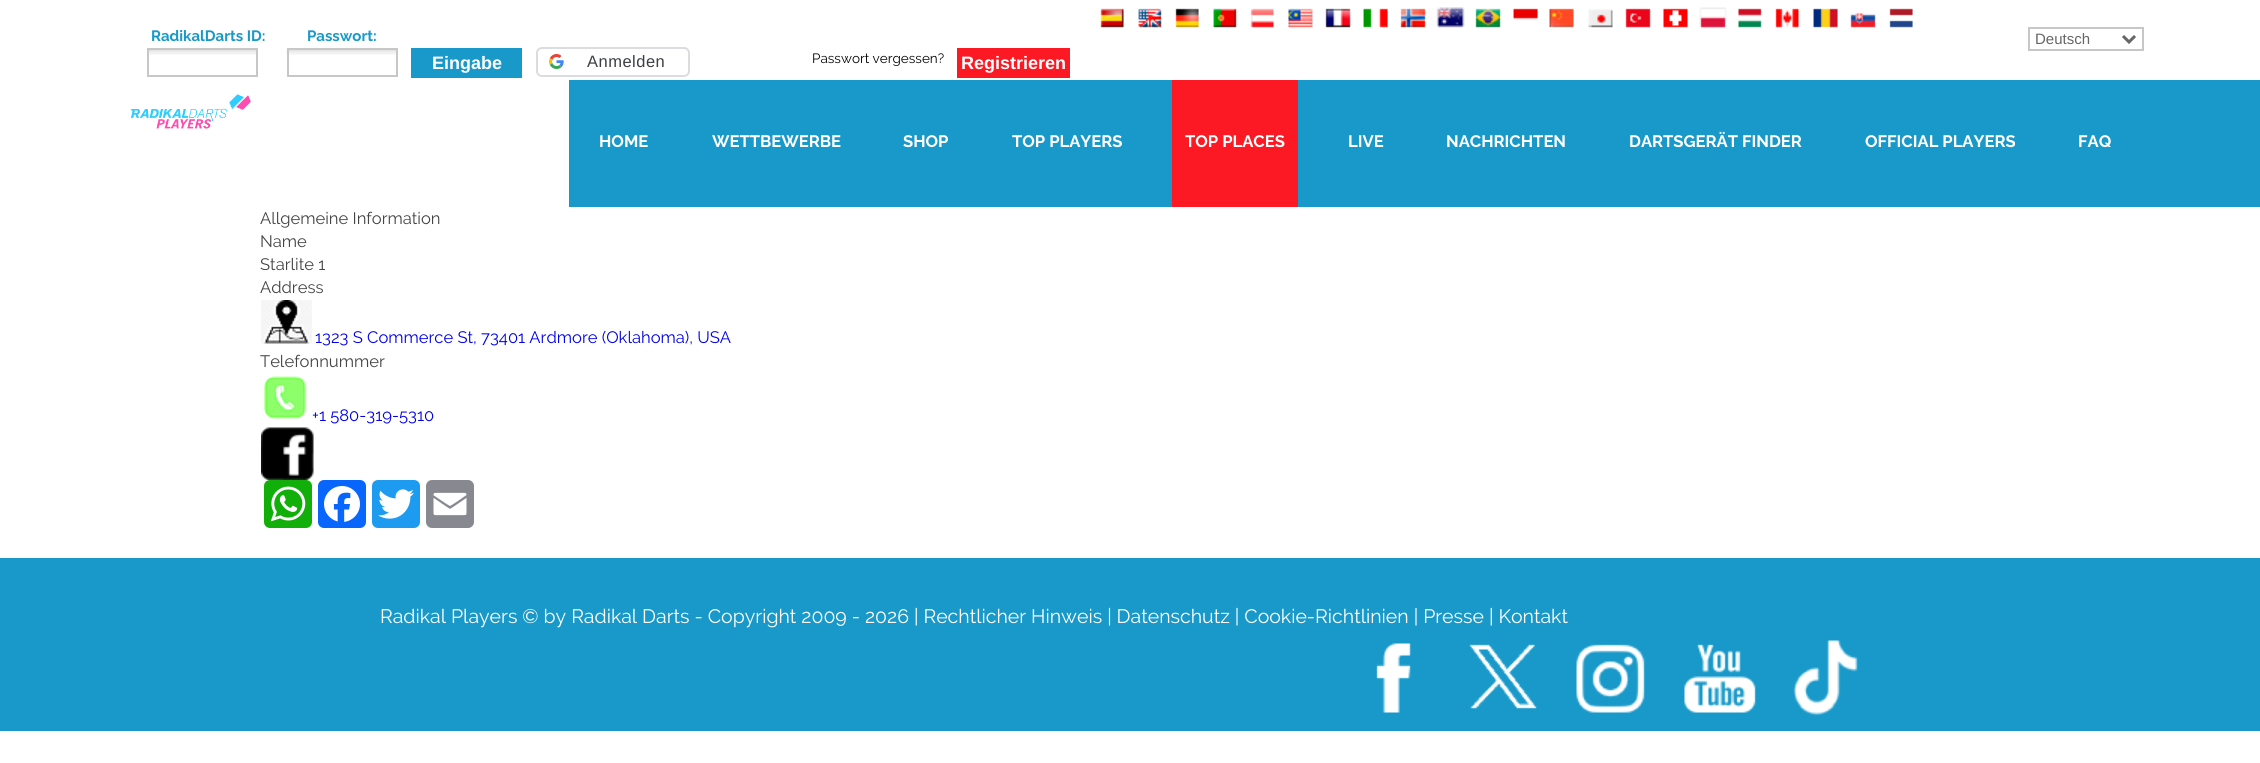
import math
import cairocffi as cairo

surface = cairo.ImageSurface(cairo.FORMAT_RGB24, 2260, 763)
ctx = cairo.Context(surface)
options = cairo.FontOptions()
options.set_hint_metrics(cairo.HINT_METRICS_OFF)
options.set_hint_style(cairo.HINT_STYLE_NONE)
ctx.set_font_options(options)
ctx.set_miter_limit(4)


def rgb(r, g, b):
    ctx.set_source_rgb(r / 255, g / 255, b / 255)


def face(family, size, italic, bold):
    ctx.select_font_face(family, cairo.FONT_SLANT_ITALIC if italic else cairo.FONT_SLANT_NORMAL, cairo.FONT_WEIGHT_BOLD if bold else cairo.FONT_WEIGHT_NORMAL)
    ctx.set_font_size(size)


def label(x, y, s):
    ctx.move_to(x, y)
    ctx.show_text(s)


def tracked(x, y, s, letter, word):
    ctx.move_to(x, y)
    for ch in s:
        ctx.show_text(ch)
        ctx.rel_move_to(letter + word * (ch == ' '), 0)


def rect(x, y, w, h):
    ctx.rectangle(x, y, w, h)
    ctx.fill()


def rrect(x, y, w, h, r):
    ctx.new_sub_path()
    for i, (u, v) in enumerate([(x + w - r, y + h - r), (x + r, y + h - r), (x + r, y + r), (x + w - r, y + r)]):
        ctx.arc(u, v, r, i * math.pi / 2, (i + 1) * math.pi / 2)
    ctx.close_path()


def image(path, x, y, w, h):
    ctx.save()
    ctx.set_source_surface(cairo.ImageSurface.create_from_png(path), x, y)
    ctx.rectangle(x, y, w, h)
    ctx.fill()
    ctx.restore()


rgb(255, 255, 255)
ctx.paint()
rgb(24, 153, 201)
rect(569, 80, 1691, 127)
image('image0.png', 1100, 8, 24, 20)
image('image1.png', 1138, 8, 24, 20)
image('image2.png', 1175, 8, 24, 20)
image('image3.png', 1213, 8, 24, 20)
image('image4.png', 1250, 8, 24, 20)
image('image5.png', 1288, 8, 25, 20)
image('image6.png', 1325, 8, 26, 20)
image('image7.png', 1363, 8, 25, 20)
image('image8.png', 1400, 8, 26, 20)
image('image9.png', 1436, 7, 29, 21)
image('image10.png', 1475, 8, 26, 20)
image('image11.png', 1513, 8, 25, 12)
image('image12.png', 1549, 8, 25, 20)
image('image13.png', 1588, 9, 25, 19)
image('image14.png', 1625, 8, 26, 20)
image('image15.png', 1663, 8, 25, 20)
image('image16.png', 1699, 7, 28, 22)
image('image17.png', 1738, 8, 24, 20)
image('image18.png', 1775, 8, 24, 20)
image('image19.png', 1813, 8, 25, 20)
image('image20.png', 1850, 12, 26, 16)
image('image21.png', 1889, 8, 24, 20)
face('Raleway', 15, 0, 1)
label(151, 41, 'RadikalDarts ID:')
image('image22.png', 149, 50, 107, 5)
ctx.rectangle(148, 49, 109, 27)
rgb(199, 199, 199)
ctx.stroke()
rgb(24, 153, 201)
label(307, 41, 'Passwort:')
image('image23.png', 286, 49, 110, 6)
ctx.rectangle(288, 49, 109, 27)
rgb(199, 199, 199)
ctx.stroke()
rgb(24, 153, 201)
rect(411, 48, 111, 30)
face('Liberation Sans', 18, 0, 1)
rgb(255, 255, 255)
label(432, 69, 'Eingabe')
rrect(537, 48, 152, 28, 5)
rgb(218, 220, 224)
ctx.stroke()
image('image24.png', 549, 54, 15, 15)
face('Liberation Sans', 16.5, 0, 0)
rgb(60, 64, 67)
tracked(587, 67, 'Anmelden', 0.5, 0)
face('Raleway', 13.5, 0, 0)
rgb(0, 0, 0)
label(812, 63, 'Passwort vergessen?')
rgb(253, 25, 35)
rect(957, 48, 113, 30)
face('Liberation Sans', 18, 0, 1)
rgb(255, 255, 255)
label(961, 69, 'Registrieren')
ctx.rectangle(2029, 28, 114, 22)
rgb(199, 199, 199)
ctx.stroke()
ctx.new_path()
ctx.move_to(2123, 36)
ctx.line_to(2129, 42)
ctx.line_to(2135, 36)
rgb(102, 102, 102)
ctx.set_line_width(3)
ctx.stroke()
face('Liberation Sans', 15, 0, 0)
label(2035, 44, 'Deutsch')
image('image25.png', 130, 94, 121, 35)
face('Raleway', 16.6, 0, 1)
rgb(255, 255, 255)
label(599, 147, 'HOME')
label(712, 147, 'WETTBEWERBE')
label(903, 147, 'SHOP')
label(1012, 147, 'TOP PLAYERS')
rgb(253, 25, 35)
rect(1172, 80, 126, 127)
rgb(255, 255, 255)
label(1185, 147, 'TOP PLACES')
label(1348, 147, 'LIVE')
label(1446, 147, 'NACHRICHTEN')
label(1629, 147, 'DARTSGERÄT FINDER')
label(1865, 147, 'OFFICIAL PLAYERS')
label(2078, 147, 'FAQ')
face('Raleway', 16.6, 0, 0)
rgb(68, 68, 68)
label(260, 224, 'Allgemeine Information')
label(260, 247, 'Name')
label(260, 270, 'Starlite 1')
label(260, 293, 'Address')
image('image26.png', 261, 300, 51, 44)
rgb(0, 0, 238)
label(315, 343, '1323 S Commerce St, 73401 Ardmore (Oklahoma), USA')
rgb(68, 68, 68)
label(260, 367, 'Telefonnummer')
image('image27.png', 261, 376, 48, 43)
rgb(0, 0, 238)
label(312, 421, '+1 580-319-5310')
image('image28.png', 261, 427, 53, 53)
rgb(18, 175, 10)
rrect(264, 480, 48, 48, 6)
ctx.fill()
image('image29.png', 270, 486, 36, 36)
rgb(8, 102, 255)
rrect(318, 480, 48, 48, 6)
ctx.fill()
image('image30.png', 324, 486, 36, 36)
rgb(29, 155, 240)
rrect(372, 480, 48, 48, 6)
ctx.fill()
image('image31.png', 378, 489, 36, 30)
rgb(136, 137, 144)
rrect(426, 480, 48, 48, 6)
ctx.fill()
image('image32.png', 433, 492, 34, 24)
rgb(24, 153, 201)
rect(0, 558, 2260, 173)
face('Raleway', 19.5, 0, 0)
rgb(255, 255, 255)
label(380, 623, 'Radikal Players © by Radikal Darts - Copyright 2009 - 2026 | Rechtlicher Hinweis | Datenschutz | Cookie-Richtlinien | Presse | Kontakt')
image('image33.png', 1376, 643, 35, 70)
image('image34.png', 1469, 644, 68, 65)
image('image35.png', 1576, 644, 69, 69)
image('image36.png', 1684, 644, 72, 69)
image('image37.png', 1793, 640, 65, 76)
surface.write_to_png('render.png')
